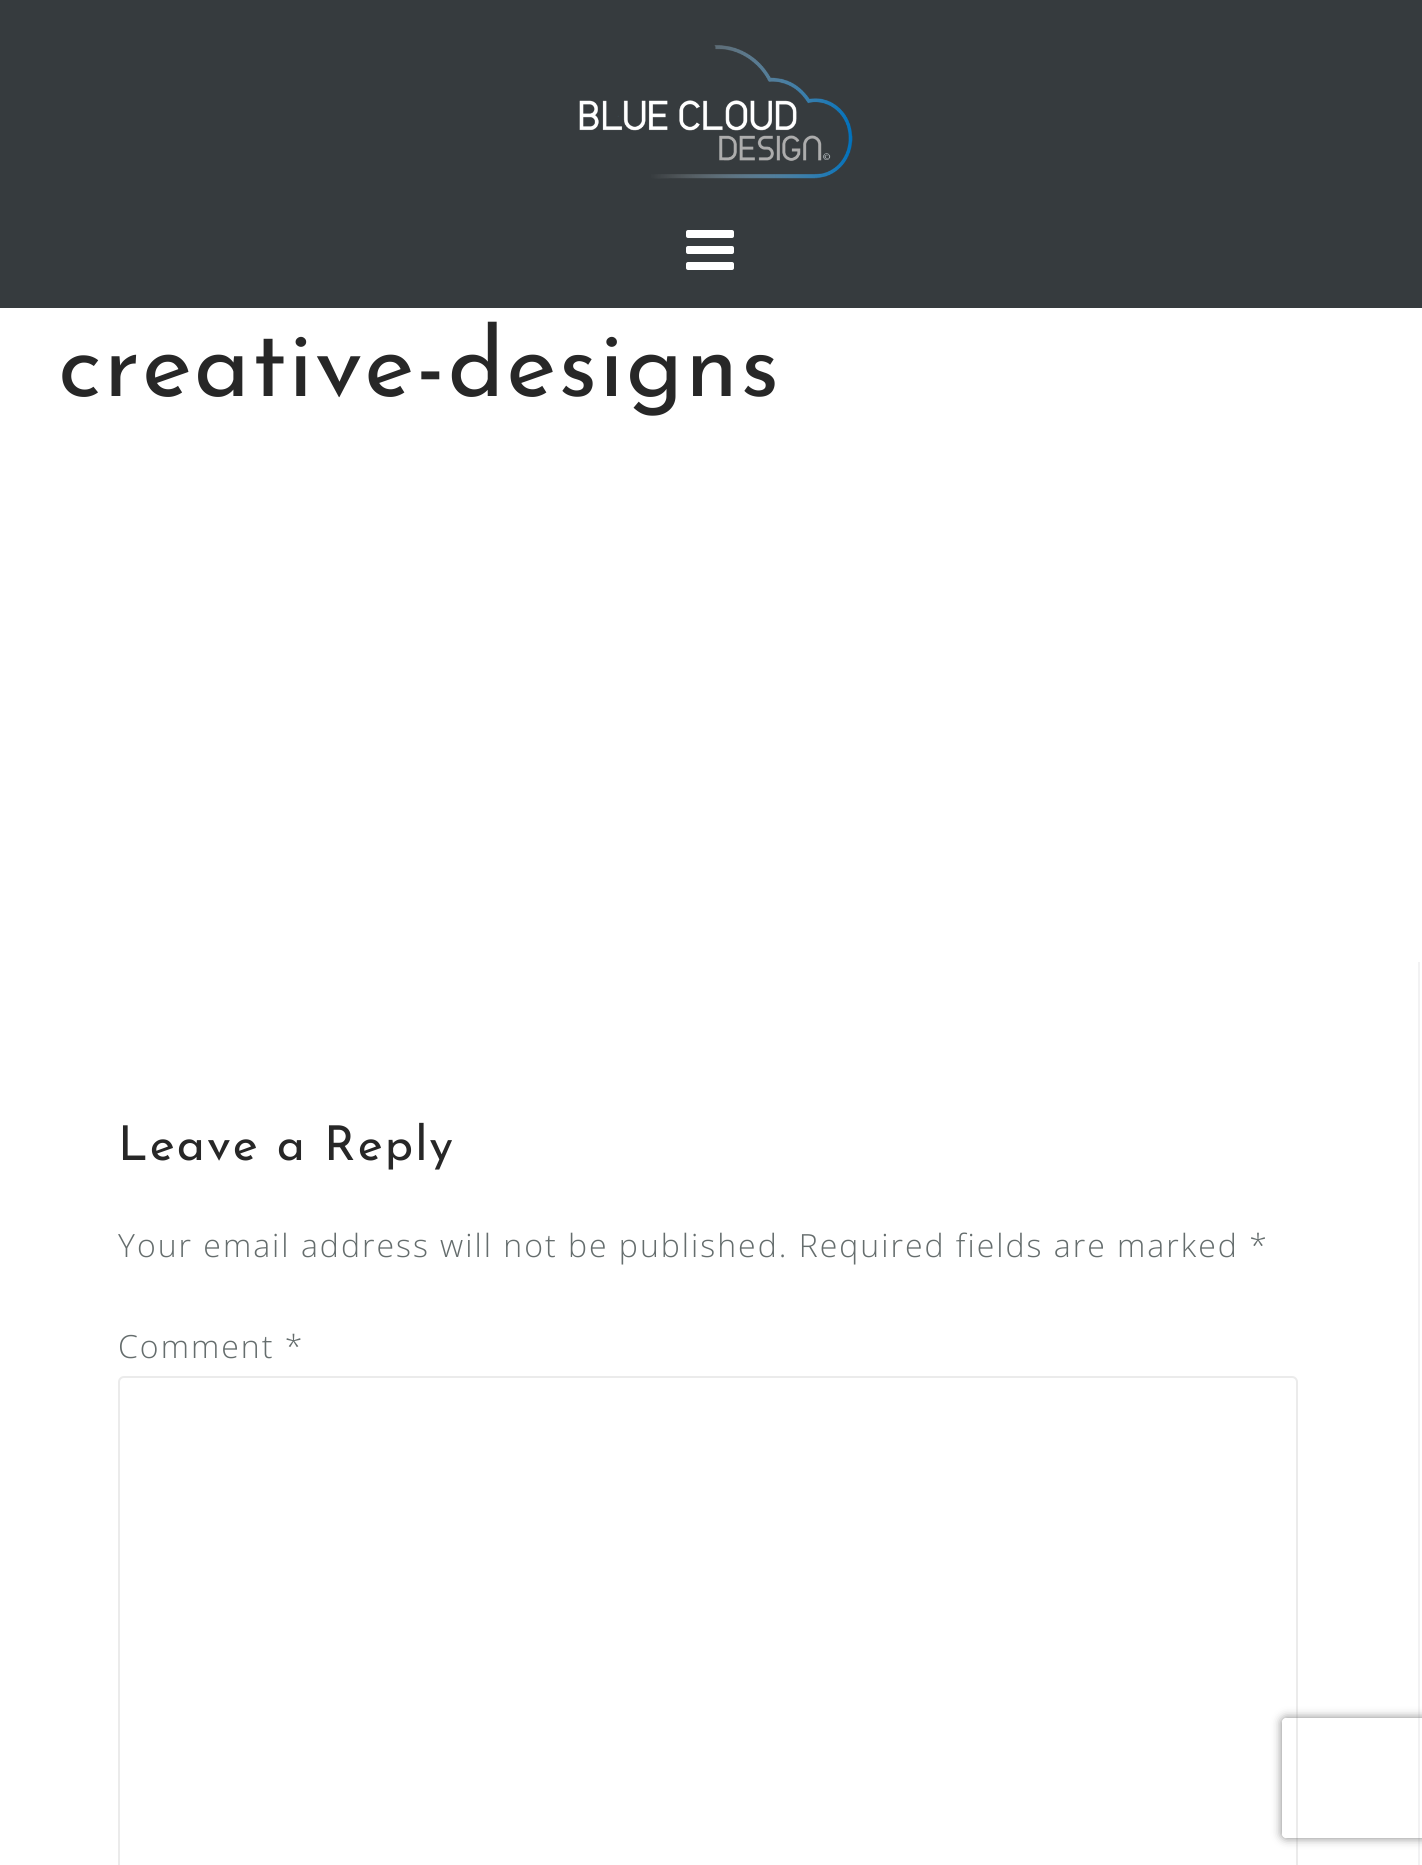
import math
import cairocffi as cairo

surface = cairo.ImageSurface(cairo.FORMAT_RGB24, 1422, 1865)
ctx = cairo.Context(surface)
options = cairo.FontOptions()
options.set_hint_metrics(cairo.HINT_METRICS_OFF)
options.set_hint_style(cairo.HINT_STYLE_NONE)
ctx.set_font_options(options)
ctx.set_miter_limit(4)


def rgb(r, g, b):
    ctx.set_source_rgb(r / 255, g / 255, b / 255)


def face(family, size, italic, bold):
    ctx.select_font_face(family, cairo.FONT_SLANT_ITALIC if italic else cairo.FONT_SLANT_NORMAL, cairo.FONT_WEIGHT_BOLD if bold else cairo.FONT_WEIGHT_NORMAL)
    ctx.set_font_size(size)


def tracked(x, y, s, letter, word):
    ctx.move_to(x, y)
    for ch in s:
        ctx.show_text(ch)
        ctx.rel_move_to(letter + word * (ch == ' '), 0)


def rect(x, y, w, h):
    ctx.rectangle(x, y, w, h)
    ctx.fill()


def rrect(x, y, w, h, r):
    ctx.new_sub_path()
    for i, (u, v) in enumerate([(x + w - r, y + h - r), (x + r, y + h - r), (x + r, y + r), (x + w - r, y + r)]):
        ctx.arc(u, v, r, i * math.pi / 2, (i + 1) * math.pi / 2)
    ctx.close_path()


def soft_shadow(x, y, w, h, r, blur, alpha):
    ctx.push_group_with_content(cairo.CONTENT_ALPHA)
    ctx.set_operator(cairo.OPERATOR_SOURCE)
    for i in range(15, -16, -2):
        e = blur * i / 6
        if min(w, h) + 2 * e > 0:
            ctx.set_source_rgba(0, 0, 0, alpha * math.erfc((i - 1) / 8.5) / 2)
            rrect(x - e, y - e, w + 2 * e, h + 2 * e, max(0, min(r + e + blur * .6, min(w, h) / 2 + e)))
            ctx.fill()
    ctx.mask(ctx.pop_group())


def image(path, x, y, w, h):
    ctx.save()
    ctx.set_source_surface(cairo.ImageSurface.create_from_png(path), x, y)
    ctx.rectangle(x, y, w, h)
    ctx.fill()
    ctx.restore()


rgb(255, 255, 255)
ctx.paint()
rgb(54, 59, 62)
rect(0, 0, 1422, 308)
image('image0.png', 579, 45, 274, 134)
image('image1.png', 686, 230, 48, 40)
face('Josefin Sans', 96, 0, 0)
rgb(39, 39, 39)
tracked(58, 396, 'creative-designs', 2, 0)
rgb(242, 242, 243)
rect(1418, 962, 2, 903)
face('Josefin Sans', 48, 0, 0)
rgb(39, 39, 39)
tracked(118, 1160, 'Leave a Reply', 2, 0)
face('Open Sans Light', 32, 0, 0)
rgb(101, 109, 109)
tracked(118, 1257, 'Your email address will not be published. Required fields are marked *', 2, 0)
tracked(118, 1358, 'Comment *', 2, 0)
rrect(119, 1377, 1178, 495, 5)
rgb(235, 235, 235)
ctx.stroke()
ctx.save()
ctx.set_fill_rule(cairo.FILL_RULE_EVEN_ODD)
ctx.new_path()
ctx.move_to(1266, 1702)
ctx.line_to(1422, 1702)
ctx.line_to(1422, 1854)
ctx.line_to(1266, 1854)
ctx.close_path()
ctx.move_to(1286, 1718)
ctx.line_to(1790, 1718)
ctx.curve_to(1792, 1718, 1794, 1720, 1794, 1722)
ctx.line_to(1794, 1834)
ctx.curve_to(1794, 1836, 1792, 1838, 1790, 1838)
ctx.line_to(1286, 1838)
ctx.curve_to(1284, 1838, 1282, 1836, 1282, 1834)
ctx.line_to(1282, 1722)
ctx.curve_to(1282, 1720, 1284, 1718, 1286, 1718)
ctx.close_path()
ctx.clip()
rgb(128, 128, 128)
soft_shadow(1282, 1718, 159, 120, 4, 5, 1)
ctx.restore()
surface.write_to_png('render.png')
